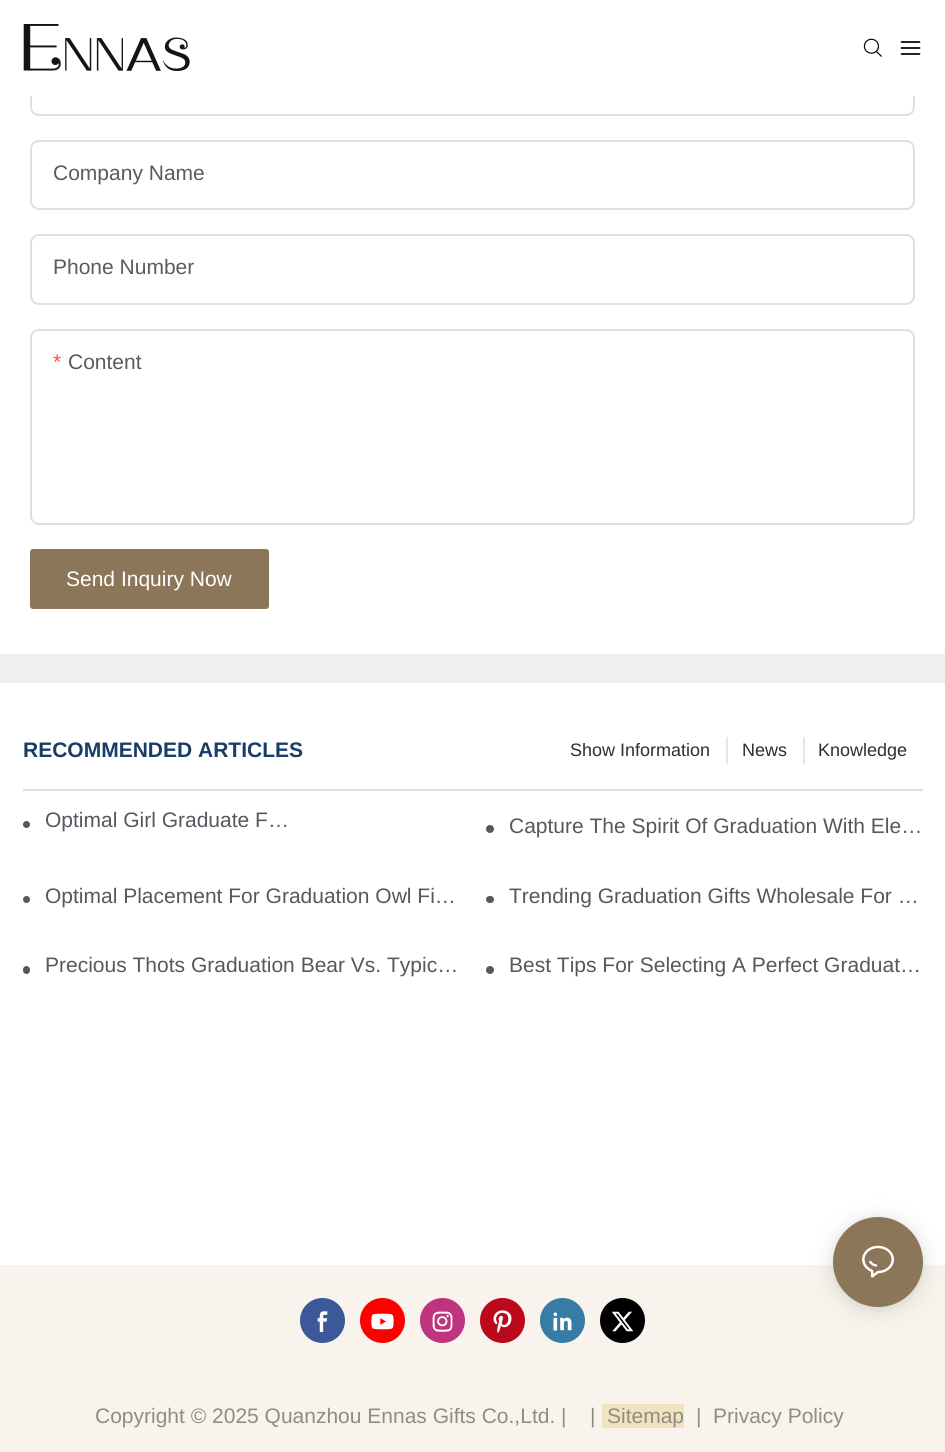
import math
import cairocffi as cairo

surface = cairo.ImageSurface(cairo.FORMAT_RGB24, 945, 1452)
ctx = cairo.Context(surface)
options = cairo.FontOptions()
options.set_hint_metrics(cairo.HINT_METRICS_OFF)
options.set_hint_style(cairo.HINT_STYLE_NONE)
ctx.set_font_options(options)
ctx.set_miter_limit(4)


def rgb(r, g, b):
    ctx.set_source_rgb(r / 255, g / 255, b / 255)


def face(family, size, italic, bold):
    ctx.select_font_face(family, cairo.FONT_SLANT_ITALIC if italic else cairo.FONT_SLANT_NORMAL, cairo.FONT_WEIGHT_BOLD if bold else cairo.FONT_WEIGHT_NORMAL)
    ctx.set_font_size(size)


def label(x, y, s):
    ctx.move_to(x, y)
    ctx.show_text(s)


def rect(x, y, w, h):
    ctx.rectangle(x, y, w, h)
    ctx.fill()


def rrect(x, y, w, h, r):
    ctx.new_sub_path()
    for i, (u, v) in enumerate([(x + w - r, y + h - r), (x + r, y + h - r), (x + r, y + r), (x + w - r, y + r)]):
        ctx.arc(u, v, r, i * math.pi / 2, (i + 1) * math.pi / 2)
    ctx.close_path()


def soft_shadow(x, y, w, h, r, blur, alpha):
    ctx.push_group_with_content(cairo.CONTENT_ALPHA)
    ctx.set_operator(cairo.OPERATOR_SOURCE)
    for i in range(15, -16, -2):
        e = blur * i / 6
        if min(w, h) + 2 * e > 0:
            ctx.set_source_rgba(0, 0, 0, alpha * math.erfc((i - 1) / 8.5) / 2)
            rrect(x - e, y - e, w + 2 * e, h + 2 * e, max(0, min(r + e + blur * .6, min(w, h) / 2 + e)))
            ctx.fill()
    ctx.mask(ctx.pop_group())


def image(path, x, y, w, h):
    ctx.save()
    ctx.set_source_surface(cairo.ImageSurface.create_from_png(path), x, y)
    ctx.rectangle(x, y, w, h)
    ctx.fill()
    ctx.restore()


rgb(255, 255, 255)
ctx.paint()
rrect(31, 46, 883, 69, 8)
rgb(223, 223, 225)
ctx.stroke()
rgb(255, 255, 255)
rect(30, 45, 885, 51)
image('image0.png', 23, 24, 167, 47)
image('image1.png', 863, 38, 19, 19)
image('image2.png', 900, 41, 21, 14)
rgb(239, 239, 239)
rect(0, 654, 945, 29)
rrect(31, 141, 883, 68, 8)
rgb(223, 223, 225)
ctx.stroke()
face('Liberation Sans', 21, 0, 0)
rgb(91, 91, 91)
label(53, 180, 'Company Name')
rrect(31, 235, 883, 69, 8)
rgb(223, 223, 225)
ctx.stroke()
rgb(91, 91, 91)
label(53, 274, 'Phone Number')
rrect(31, 330, 883, 194, 8)
rgb(223, 223, 225)
ctx.stroke()
rgb(255, 77, 77)
label(53, 369, '*')
rgb(91, 91, 91)
label(68, 369, 'Content')
rgb(139, 118, 89)
rrect(30, 549, 239, 60, 3)
ctx.fill()
rgb(255, 255, 255)
label(66, 586, 'Send Inquiry Now')
rgb(223, 223, 225)
rect(23, 789, 900, 2)
face('Liberation Sans', 21, 0, 1)
rgb(24, 61, 102)
label(23, 757, 'RECOMMENDED ARTICLES')
face('Liberation Sans', 18, 0, 0)
rgb(40, 48, 54)
label(570, 756, 'Show Information')
rgb(230, 230, 230)
rect(726, 737, 2, 27)
rgb(40, 48, 54)
label(742, 756, 'News')
rgb(230, 230, 230)
rect(803, 737, 2, 27)
rgb(40, 48, 54)
label(818, 756, 'Knowledge')
rgb(92, 92, 92)
ctx.new_path()
ctx.arc(26.5, 824.5, 2, 0, 2 * math.pi)
ctx.fill_preserve()
rgb(83, 89, 94)
ctx.set_line_width(3)
ctx.stroke()
face('Liberation Sans', 21, 0, 0)
label(45, 827, 'Optimal Girl Graduate F…')
rgb(92, 92, 92)
ctx.new_path()
ctx.arc(490, 829, 2.5, 0, 2 * math.pi)
ctx.fill_preserve()
rgb(83, 89, 94)
ctx.stroke()
label(509, 833, 'Capture The Spirit Of Graduation With Ele…')
rgb(92, 92, 92)
ctx.new_path()
ctx.arc(26.5, 899.5, 2, 0, 2 * math.pi)
ctx.fill_preserve()
rgb(83, 89, 94)
ctx.stroke()
label(45, 903, 'Optimal Placement For Graduation Owl Fi…')
rgb(92, 92, 92)
rrect(487.5, 897.5, 5, 4, 2)
ctx.fill_preserve()
rgb(83, 89, 94)
ctx.stroke()
label(509, 903, 'Trending Graduation Gifts Wholesale For …')
rgb(92, 92, 92)
rrect(24.5, 967.5, 4, 5, 2)
ctx.fill_preserve()
rgb(83, 89, 94)
ctx.stroke()
label(45, 972, 'Precious Thots Graduation Bear Vs. Typic…')
rgb(92, 92, 92)
ctx.new_path()
ctx.arc(490, 970, 2.5, 0, 2 * math.pi)
ctx.fill_preserve()
rgb(83, 89, 94)
ctx.stroke()
label(509, 972, 'Best Tips For Selecting A Perfect Graduat…')
rgb(248, 244, 237)
rect(0, 1265, 945, 187)
rgb(59, 89, 152)
ctx.new_path()
ctx.arc(322.5, 1320.5, 22.5, 0, 2 * math.pi)
ctx.fill()
image('image3.png', 317, 1311, 11, 21)
rgb(255, 0, 0)
ctx.arc(382.5, 1320.5, 22.5, 0, 2 * math.pi)
ctx.fill()
image('image4.png', 371, 1313, 23, 17)
rgb(190, 52, 127)
ctx.arc(442.5, 1320.5, 22.5, 0, 2 * math.pi)
ctx.fill()
image('image5.png', 432, 1311, 21, 21)
rgb(188, 8, 28)
ctx.arc(502.5, 1320.5, 22.5, 0, 2 * math.pi)
ctx.fill()
image('image6.png', 493, 1310, 19, 23)
rgb(55, 124, 165)
ctx.arc(562.5, 1320.5, 22.5, 0, 2 * math.pi)
ctx.fill()
image('image7.png', 553, 1312, 19, 19)
rgb(0, 0, 0)
ctx.arc(622.5, 1320.5, 22.5, 0, 2 * math.pi)
ctx.fill()
image('image8.png', 611, 1311, 23, 21)
rgb(144, 139, 133)
label(95, 1423, 'Copyright © 2025 Quanzhou Ennas Gifts Co.,Ltd. |')
label(590, 1423, '|')
rgb(241, 227, 192)
rect(602, 1404, 82, 24)
rgb(144, 139, 133)
label(607, 1423, 'Sitemap')
label(696, 1423, '|')
label(713, 1423, 'Privacy Policy')
rgb(0, 0, 0)
soft_shadow(833, 1220, 90, 90, 45, 12, 0.12)
soft_shadow(833, 1218, 90, 90, 45, 3, 0.06)
rgb(139, 118, 89)
ctx.arc(878, 1262, 45, 0, 2 * math.pi)
ctx.fill()
image('image9.png', 862, 1245, 32, 33)
surface.write_to_png('render.png')
